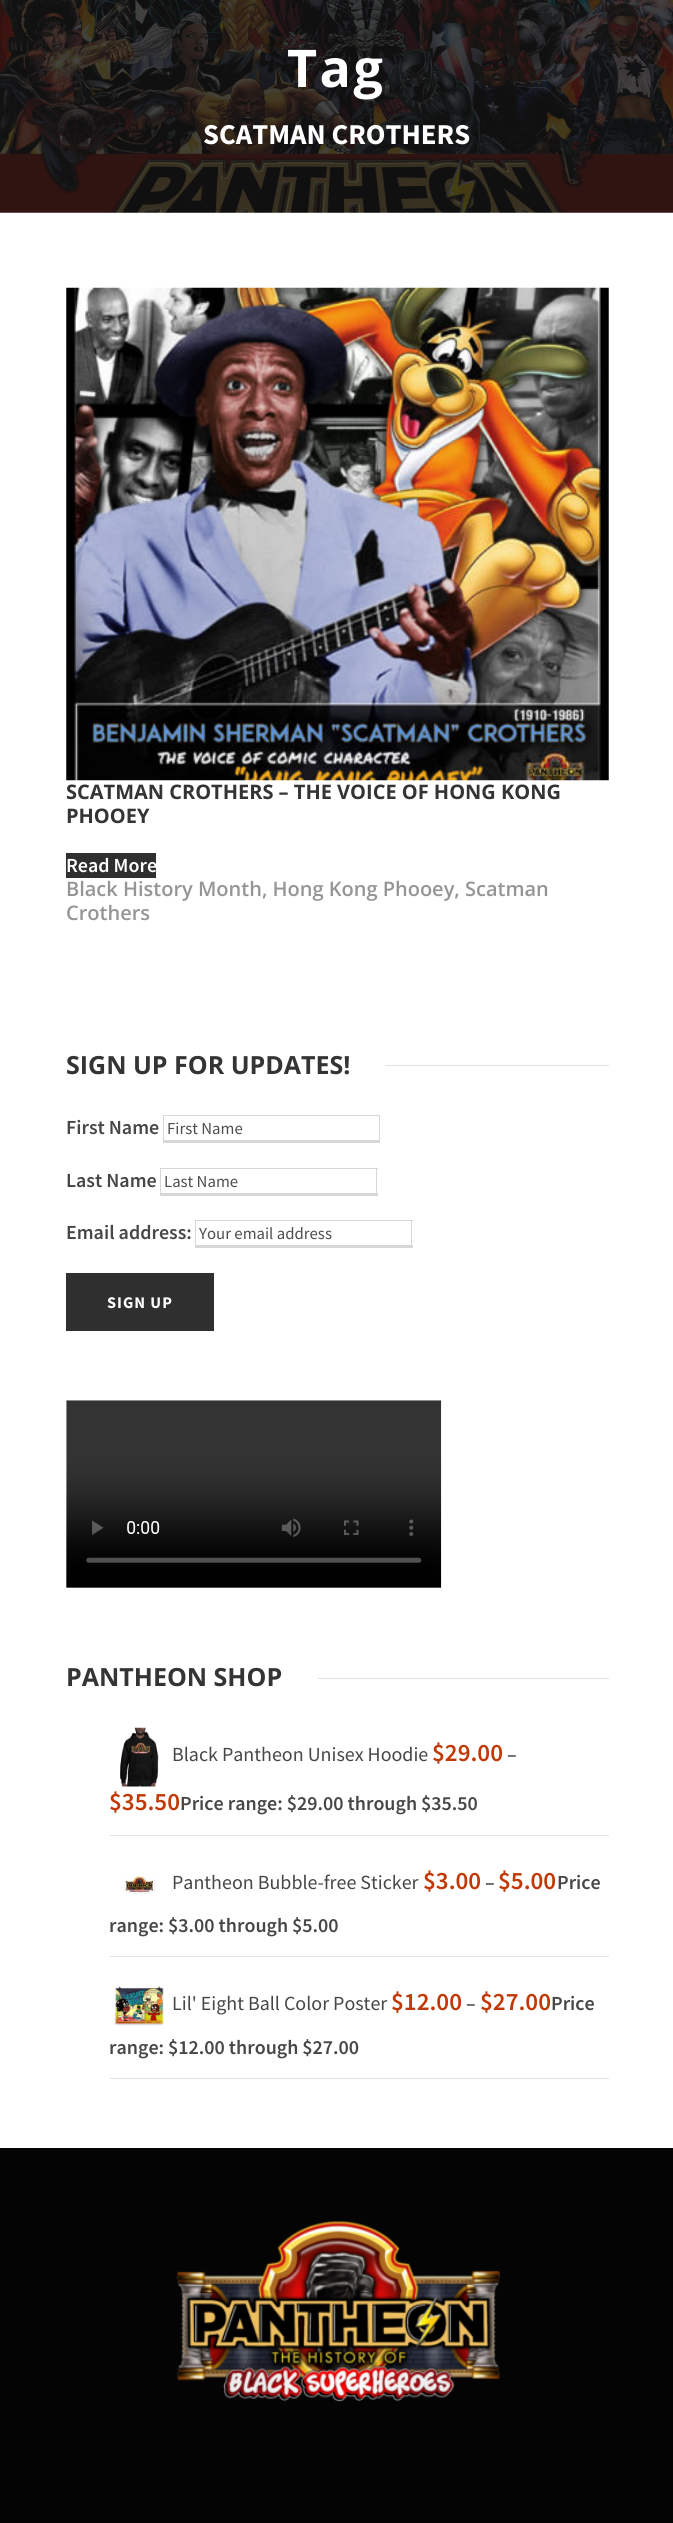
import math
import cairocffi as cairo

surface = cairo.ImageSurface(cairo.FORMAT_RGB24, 673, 2523)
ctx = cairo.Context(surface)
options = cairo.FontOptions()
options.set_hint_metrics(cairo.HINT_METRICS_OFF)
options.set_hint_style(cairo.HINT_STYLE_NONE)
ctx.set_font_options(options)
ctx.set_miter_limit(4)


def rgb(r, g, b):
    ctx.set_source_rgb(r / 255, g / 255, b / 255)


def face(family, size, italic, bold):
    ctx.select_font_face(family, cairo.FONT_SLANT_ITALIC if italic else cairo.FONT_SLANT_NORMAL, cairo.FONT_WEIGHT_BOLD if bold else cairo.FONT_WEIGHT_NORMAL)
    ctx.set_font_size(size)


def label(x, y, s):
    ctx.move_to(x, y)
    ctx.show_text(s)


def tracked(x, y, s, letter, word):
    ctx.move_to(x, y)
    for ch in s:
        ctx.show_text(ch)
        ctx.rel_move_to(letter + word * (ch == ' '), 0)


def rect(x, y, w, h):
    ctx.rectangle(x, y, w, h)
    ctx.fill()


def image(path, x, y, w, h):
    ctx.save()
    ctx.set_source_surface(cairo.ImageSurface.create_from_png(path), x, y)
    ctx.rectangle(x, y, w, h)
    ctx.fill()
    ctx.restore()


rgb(255, 255, 255)
ctx.paint()
image('image0.png', 0, 0, 673, 213)
face('Open Sans', 52, 0, 1)
rgb(255, 255, 255)
tracked(287, 87, 'Tag', 2.5, 0)
face('Source Sans Pro', 28.75, 0, 1)
label(203, 144, 'SCATMAN CROTHERS')
image('image1.png', 66, 287, 543, 494)
face('Open Sans', 20, 0, 1)
rgb(52, 52, 52)
label(66, 799, 'SCATMAN CROTHERS – THE VOICE OF HONG KONG')
label(66, 823, 'PHOOEY')
rgb(47, 47, 47)
rect(66, 853, 90, 25)
face('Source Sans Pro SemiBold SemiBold', 20, 0, 0)
rgb(255, 255, 255)
label(66, 872, 'Read More')
face('Open Sans SemiBold', 20, 0, 0)
rgb(149, 149, 149)
label(66, 896, 'Black History Month, Hong Kong Phooey, Scatman')
label(66, 920, 'Crothers')
face('Open Sans', 25, 0, 1)
rgb(52, 52, 52)
label(66, 1074, 'SIGN UP FOR UPDATES!')
rgb(226, 226, 226)
rect(385, 1065, 224, 1)
face('Source Sans Pro SemiBold SemiBold', 20, 0, 0)
rgb(71, 71, 71)
label(66, 1134, 'First Name')
rgb(215, 215, 215)
rect(163, 1115, 217, 1)
rect(379, 1115, 1, 28)
rect(163, 1140, 217, 3)
rect(163, 1115, 1, 28)
face('Source Sans Pro', 16.75, 0, 0)
rgb(78, 78, 78)
label(167, 1134, 'First Name')
face('Source Sans Pro SemiBold SemiBold', 20, 0, 0)
rgb(71, 71, 71)
label(66, 1187, 'Last Name')
rgb(215, 215, 215)
rect(160, 1168, 218, 1)
rect(376, 1168, 1, 27)
rect(160, 1193, 218, 3)
rect(160, 1168, 1, 27)
face('Source Sans Pro', 16.75, 0, 0)
rgb(78, 78, 78)
label(164, 1187, 'Last Name')
face('Source Sans Pro SemiBold SemiBold', 20, 0, 0)
rgb(71, 71, 71)
label(66, 1239, 'Email address:')
rgb(215, 215, 215)
rect(195, 1220, 218, 1)
rect(411, 1220, 1, 28)
rect(195, 1245, 218, 3)
rect(195, 1220, 1, 28)
face('Source Sans Pro', 16.75, 0, 0)
rgb(78, 78, 78)
label(199, 1239, 'Your email address')
rgb(47, 47, 47)
rect(66, 1273, 148, 58)
face('Source Sans Pro', 16.25, 0, 1)
rgb(255, 255, 255)
tracked(107, 1308, 'SIGN UP', 1, 0)
image('image2.png', 66, 1400, 376, 188)
face('Open Sans', 25, 0, 1)
rgb(52, 52, 52)
label(66, 1686, 'PANTHEON SHOP')
rgb(226, 226, 226)
rect(318, 1678, 291, 1)
rect(110, 1835, 499, 1)
image('image3.png', 120, 1727, 39, 60)
face('Source Sans Pro', 20, 0, 0)
rgb(71, 71, 71)
label(172, 1761, 'Black Pantheon Unisex Hoodie')
face('Source Sans Pro SemiBold SemiBold', 25, 0, 0)
rgb(193, 57, 7)
label(432, 1761, '$29.00')
face('Source Sans Pro SemiBold SemiBold', 20, 0, 0)
rgb(71, 71, 71)
label(507, 1761, '–')
face('Source Sans Pro SemiBold SemiBold', 25, 0, 0)
rgb(193, 57, 7)
label(109, 1810, '$35.50')
face('Source Sans Pro SemiBold SemiBold', 20, 0, 0)
rgb(71, 71, 71)
label(180, 1810, 'Price range: $29.00 through $35.50')
rgb(226, 226, 226)
rect(110, 1956, 499, 1)
image('image4.png', 124, 1876, 31, 18)
face('Source Sans Pro', 20, 0, 0)
rgb(71, 71, 71)
label(172, 1889, 'Pantheon Bubble-free Sticker')
face('Source Sans Pro SemiBold SemiBold', 25, 0, 0)
rgb(193, 57, 7)
label(423, 1889, '$3.00')
face('Source Sans Pro SemiBold SemiBold', 20, 0, 0)
rgb(71, 71, 71)
label(485, 1889, '–')
face('Source Sans Pro SemiBold SemiBold', 25, 0, 0)
rgb(193, 57, 7)
label(498, 1889, '$5.00')
face('Source Sans Pro SemiBold SemiBold', 20, 0, 0)
rgb(71, 71, 71)
label(557, 1889, 'Price')
label(109, 1932, 'range: $3.00 through $5.00')
rgb(226, 226, 226)
rect(110, 2078, 499, 1)
image('image5.png', 114, 1986, 50, 40)
face('Source Sans Pro', 20, 0, 0)
rgb(71, 71, 71)
label(172, 2010, 'Lil\' Eight Ball Color Poster')
face('Source Sans Pro SemiBold SemiBold', 25, 0, 0)
rgb(193, 57, 7)
label(391, 2010, '$12.00')
face('Source Sans Pro SemiBold SemiBold', 20, 0, 0)
rgb(71, 71, 71)
label(466, 2010, '–')
face('Source Sans Pro SemiBold SemiBold', 25, 0, 0)
rgb(193, 57, 7)
label(480, 2010, '$27.00')
face('Source Sans Pro SemiBold SemiBold', 20, 0, 0)
rgb(71, 71, 71)
label(551, 2010, 'Price')
label(109, 2054, 'range: $12.00 through $27.00')
rgb(4, 4, 4)
rect(0, 2148, 673, 375)
image('image6.png', 176, 2221, 325, 181)
surface.write_to_png('render.png')
